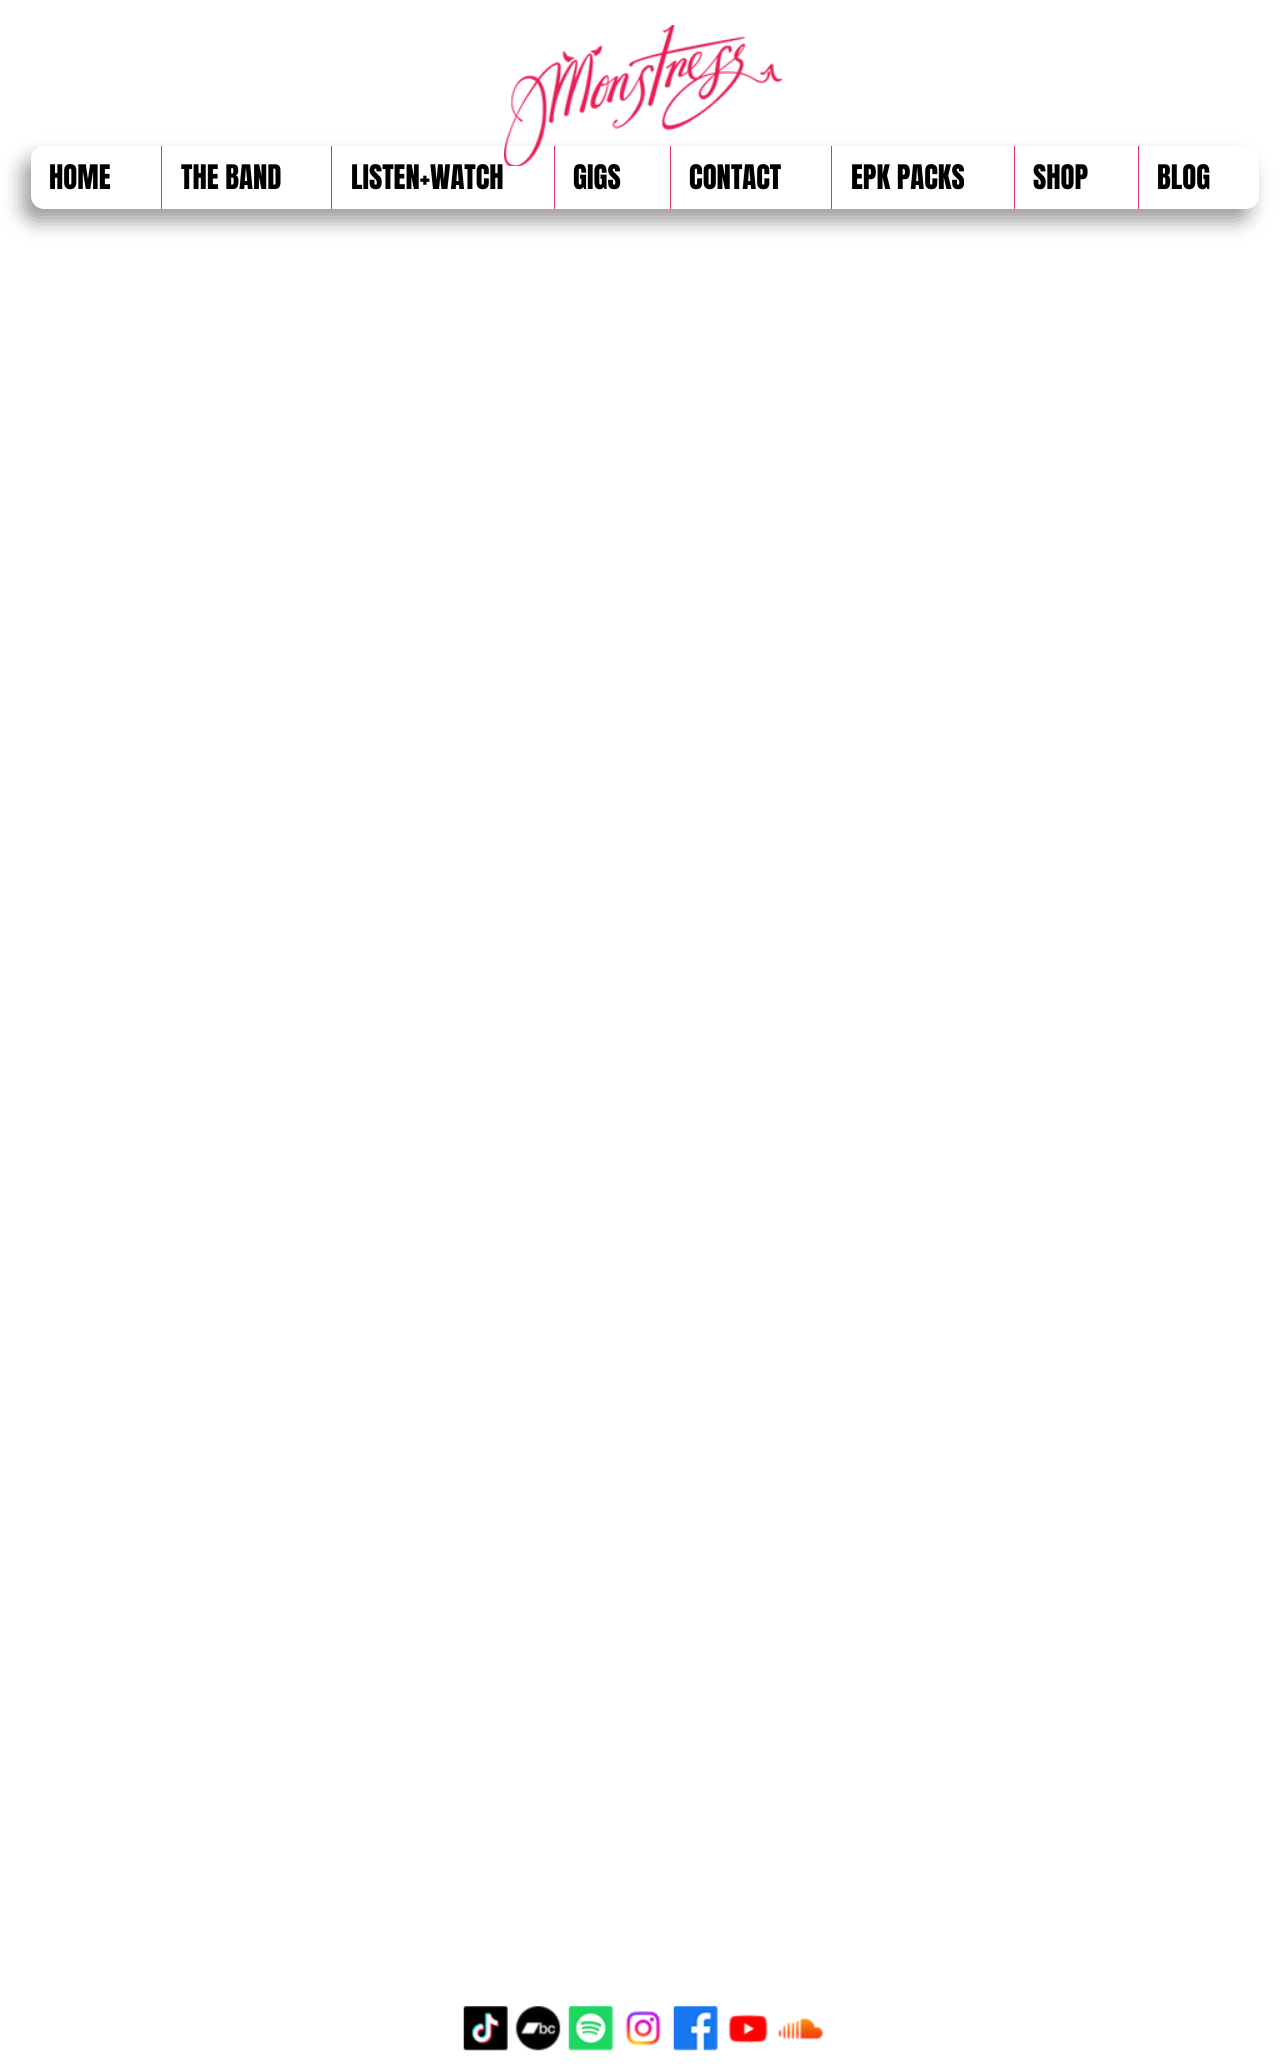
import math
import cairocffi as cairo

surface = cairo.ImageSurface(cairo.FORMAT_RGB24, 1286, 2065)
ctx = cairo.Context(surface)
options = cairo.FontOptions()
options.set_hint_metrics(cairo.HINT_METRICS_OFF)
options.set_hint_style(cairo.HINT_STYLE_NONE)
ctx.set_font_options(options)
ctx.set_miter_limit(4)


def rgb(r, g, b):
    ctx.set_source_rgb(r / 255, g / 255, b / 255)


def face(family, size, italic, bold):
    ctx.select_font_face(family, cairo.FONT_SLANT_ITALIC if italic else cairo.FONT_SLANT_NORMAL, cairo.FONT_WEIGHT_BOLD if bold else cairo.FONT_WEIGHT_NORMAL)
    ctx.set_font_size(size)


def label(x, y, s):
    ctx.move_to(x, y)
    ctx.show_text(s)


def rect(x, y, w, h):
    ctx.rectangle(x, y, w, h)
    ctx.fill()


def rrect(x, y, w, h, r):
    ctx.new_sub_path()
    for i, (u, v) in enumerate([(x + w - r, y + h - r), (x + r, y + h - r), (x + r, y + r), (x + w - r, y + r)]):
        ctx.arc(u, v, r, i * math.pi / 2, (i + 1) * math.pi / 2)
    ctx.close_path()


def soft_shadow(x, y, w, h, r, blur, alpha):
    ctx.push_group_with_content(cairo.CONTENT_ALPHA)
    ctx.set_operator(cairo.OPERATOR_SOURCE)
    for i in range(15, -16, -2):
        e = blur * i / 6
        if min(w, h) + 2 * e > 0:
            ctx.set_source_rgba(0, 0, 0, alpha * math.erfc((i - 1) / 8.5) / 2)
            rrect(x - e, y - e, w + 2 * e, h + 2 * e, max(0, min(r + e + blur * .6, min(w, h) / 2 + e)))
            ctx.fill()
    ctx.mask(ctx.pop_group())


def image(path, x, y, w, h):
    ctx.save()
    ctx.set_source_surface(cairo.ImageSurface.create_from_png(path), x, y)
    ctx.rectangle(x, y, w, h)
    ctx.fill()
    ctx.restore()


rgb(255, 255, 255)
ctx.paint()
rgb(0, 0, 0)
soft_shadow(23, 159, 1227, 62, 13, 10, 0.4)
rgb(255, 255, 255)
rrect(31, 146, 1228, 63, 13)
ctx.fill()
rgb(220, 53, 94)
rect(554, 146, 1, 63)
face('Anton', 28.75, 0, 0)
rgb(0, 0, 0)
label(573, 189, 'GIGS')
rgb(220, 53, 94)
rect(670, 146, 1, 63)
rgb(0, 0, 0)
label(689, 189, 'CONTACT')
image('image0.png', 504, 25, 278, 141)
label(49, 189, 'HOME')
rgb(220, 53, 94)
rect(161, 146, 1, 63)
rgb(0, 0, 0)
label(181, 189, 'THE BAND')
rgb(220, 53, 94)
rect(331, 146, 1, 63)
rgb(0, 0, 0)
label(351, 189, 'LISTEN+WATCH')
rgb(220, 53, 94)
rect(831, 146, 1, 63)
rgb(0, 0, 0)
label(851, 189, 'EPK PACKS')
rgb(220, 53, 94)
rect(1014, 146, 1, 63)
rgb(0, 0, 0)
label(1033, 189, 'SHOP')
rgb(220, 53, 94)
rect(1138, 146, 1, 63)
rgb(0, 0, 0)
label(1157, 189, 'BLOG')
image('image1.png', 463, 2006, 45, 45)
image('image2.png', 515, 2006, 46, 45)
image('image3.png', 568, 2006, 45, 45)
image('image4.png', 625, 2010, 36, 36)
image('image5.png', 673, 2006, 45, 45)
image('image6.png', 728, 2014, 40, 30)
image('image7.png', 778, 2018, 45, 22)
surface.write_to_png('render.png')
